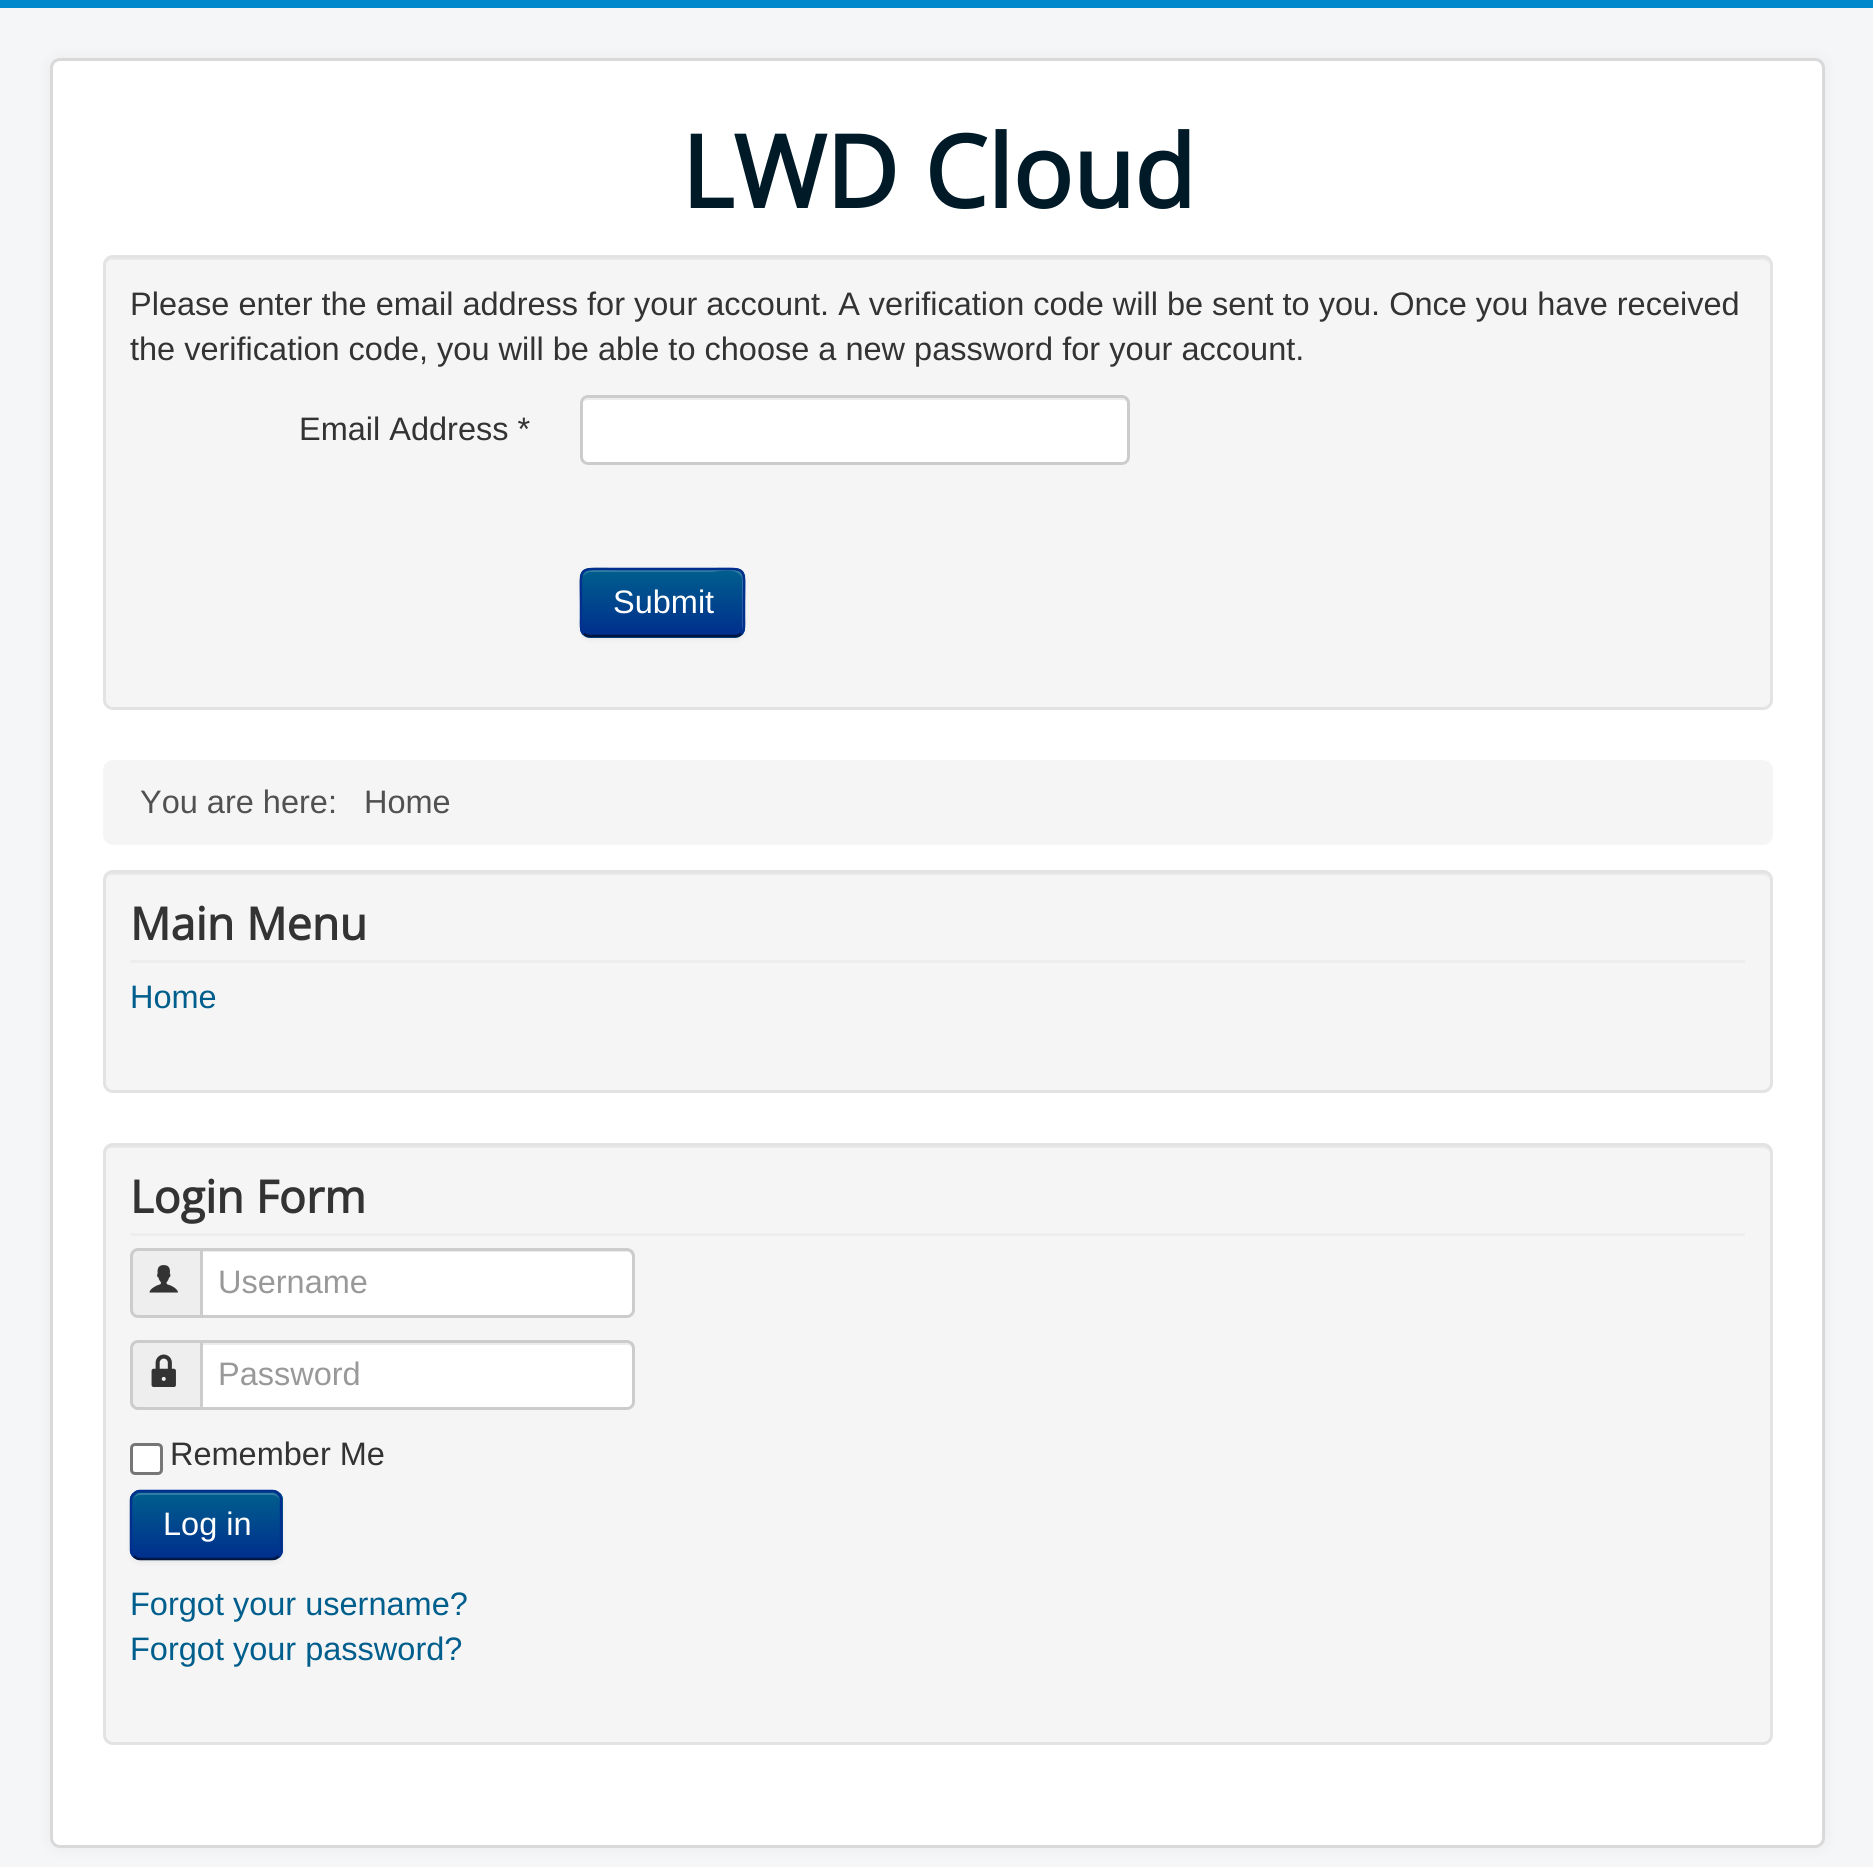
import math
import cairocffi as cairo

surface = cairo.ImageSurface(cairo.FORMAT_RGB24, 1873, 1867)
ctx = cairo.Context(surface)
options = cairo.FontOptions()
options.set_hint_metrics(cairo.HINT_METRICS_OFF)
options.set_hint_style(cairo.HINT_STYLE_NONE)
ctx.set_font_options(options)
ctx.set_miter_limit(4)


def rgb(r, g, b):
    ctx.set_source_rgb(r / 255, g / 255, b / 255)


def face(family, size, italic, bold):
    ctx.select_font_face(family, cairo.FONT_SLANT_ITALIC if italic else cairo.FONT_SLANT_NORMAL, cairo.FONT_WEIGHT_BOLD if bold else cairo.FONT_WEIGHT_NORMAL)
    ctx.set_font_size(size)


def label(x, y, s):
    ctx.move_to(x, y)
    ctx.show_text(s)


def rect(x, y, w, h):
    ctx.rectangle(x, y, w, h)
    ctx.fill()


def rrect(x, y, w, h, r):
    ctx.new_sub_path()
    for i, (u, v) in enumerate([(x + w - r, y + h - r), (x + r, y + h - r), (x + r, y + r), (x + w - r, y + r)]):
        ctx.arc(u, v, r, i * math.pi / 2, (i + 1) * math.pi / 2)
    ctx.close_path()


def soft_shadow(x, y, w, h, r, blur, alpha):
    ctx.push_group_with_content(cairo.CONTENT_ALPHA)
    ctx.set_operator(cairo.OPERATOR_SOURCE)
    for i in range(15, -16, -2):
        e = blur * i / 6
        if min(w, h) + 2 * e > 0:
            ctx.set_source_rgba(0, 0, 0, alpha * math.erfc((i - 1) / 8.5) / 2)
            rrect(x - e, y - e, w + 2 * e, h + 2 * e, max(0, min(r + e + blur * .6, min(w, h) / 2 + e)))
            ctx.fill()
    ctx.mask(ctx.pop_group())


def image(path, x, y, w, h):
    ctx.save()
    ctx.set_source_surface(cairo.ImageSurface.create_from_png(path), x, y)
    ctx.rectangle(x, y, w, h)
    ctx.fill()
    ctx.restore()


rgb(244, 246, 247)
ctx.paint()
rgb(0, 136, 204)
rect(0, 0, 1873, 8)
rgb(0, 0, 0)
soft_shadow(50, 58, 1775, 1790, 10, 7.5, 0.05)
rgb(255, 255, 255)
rrect(50, 58, 1775, 1790, 10)
ctx.fill()
rrect(51.5, 59.5, 1772, 1787, 8.5)
ctx.set_source_rgba(0, 0, 0, 0.15)
ctx.set_line_width(3)
ctx.stroke()
face('Open Sans', 100, 0, 1)
rgb(0, 26, 39)
label(681, 208, 'LWD Cloud')
rgb(245, 245, 245)
rrect(103, 255, 1670, 455, 10)
ctx.fill()
rgb(233, 233, 233)
ctx.new_path()
ctx.move_to(112, 260)
ctx.line_to(1762, 260)
ctx.curve_to(1767, 260, 1770, 263, 1770, 268)
ctx.curve_to(1770, 263, 1768, 258, 1762, 258)
ctx.line_to(113, 258)
ctx.curve_to(107, 258, 105, 263, 105, 268)
ctx.curve_to(105, 263, 108, 260, 112, 260)
ctx.close_path()
ctx.fill()
rrect(104.5, 256.5, 1667, 452, 8.5)
rgb(227, 227, 227)
ctx.stroke()
face('Liberation Sans', 32.5, 0, 0)
rgb(51, 51, 51)
label(130, 315, 'Please enter the email address for your account. A verification code will be sent to you. Once you have received')
label(130, 360, 'the verification code, you will be able to choose a new password for your account.')
label(299, 440, 'Email Address *')
rgb(255, 255, 255)
rrect(580, 395, 550, 70, 8)
ctx.fill()
rgb(236, 236, 236)
ctx.new_path()
ctx.move_to(588, 400)
ctx.line_to(1122, 400)
ctx.curve_to(1125, 400, 1128, 402, 1128, 405)
ctx.line_to(1128, 403)
ctx.curve_to(1128, 400, 1126, 398, 1123, 398)
ctx.line_to(588, 398)
ctx.curve_to(586, 398, 583, 400, 583, 402)
ctx.curve_to(584, 401, 586, 400, 588, 400)
ctx.close_path()
ctx.fill()
rrect(581.5, 396.5, 547, 67, 6.5)
rgb(204, 204, 204)
ctx.stroke()
rgb(0, 0, 0)
soft_shadow(580, 570, 165, 70, 10, 2.5, 0.05)
rgb(0, 75, 141)
rrect(580, 568, 165, 70, 10)
ctx.fill()
ctx.save()
rrect(580, 568, 165, 70, 10)
ctx.clip()
gradient = cairo.LinearGradient(663, 570, 663, 635)
gradient.add_color_stop_rgba(0, 0, 0.369, 0.553, 1)
gradient.add_color_stop_rgba(1, 0, 0.184, 0.553, 1)
ctx.set_source(gradient)
rect(580, 570, 165, 65)
ctx.restore()
ctx.set_source_rgba(1, 1, 1, 0.2)
ctx.new_path()
ctx.move_to(590, 572)
ctx.line_to(711, 572)
ctx.curve_to(715, 572, 740, 566, 742, 579)
ctx.line_to(742, 631)
ctx.curve_to(743, 630, 743, 628, 743, 627)
ctx.line_to(743, 578)
ctx.curve_to(743, 574, 739, 570, 735, 570)
ctx.line_to(591, 570)
ctx.curve_to(587, 570, 584, 573, 583, 576)
ctx.curve_to(585, 574, 587, 572, 590, 572)
ctx.close_path()
ctx.fill()
ctx.new_path()
ctx.move_to(741, 633.5)
ctx.curve_to(739.5, 635.5, 737.5, 636, 735, 636)
ctx.line_to(590, 636)
ctx.curve_to(587.5, 636, 585.5, 635.5, 584, 633.5)
rgb(0, 22, 65)
ctx.set_line_width(2.5)
ctx.stroke()
ctx.new_path()
ctx.move_to(584, 633.5)
ctx.curve_to(580, 630, 581, 624, 581, 619)
ctx.line_to(581, 602.5)
ctx.curve_to(581, 565, 576, 569, 614, 569)
ctx.line_to(711, 569)
ctx.curve_to(749, 569, 744, 565, 744, 602.5)
ctx.line_to(744, 619)
ctx.curve_to(744, 624, 745, 630, 741, 633.5)
rgb(0, 47, 141)
ctx.stroke()
rgb(255, 255, 255)
label(613, 613, 'Submit')
rgb(245, 245, 245)
rrect(103, 760, 1670, 85, 10)
ctx.fill()
rgb(81, 81, 81)
label(140, 813, 'You are here:')
label(364, 813, 'Home')
rgb(245, 245, 245)
rrect(103, 870, 1670, 223, 10)
ctx.fill()
rgb(233, 233, 233)
ctx.new_path()
ctx.move_to(112, 875)
ctx.line_to(1762, 875)
ctx.curve_to(1767, 875, 1770, 878, 1770, 882)
ctx.curve_to(1770, 877, 1767, 873, 1762, 873)
ctx.line_to(113, 873)
ctx.curve_to(108, 873, 105, 877, 105, 882)
ctx.curve_to(105, 878, 108, 875, 112, 875)
ctx.close_path()
ctx.fill()
rrect(104.5, 871.5, 1667, 220, 8.5)
rgb(227, 227, 227)
ctx.set_line_width(3)
ctx.stroke()
rgb(238, 238, 238)
rect(130, 960, 1615, 3)
face('Open Sans', 45, 0, 1)
rgb(51, 51, 51)
label(130, 940, 'Main Menu')
face('Liberation Sans', 32.5, 0, 0)
rgb(0, 94, 141)
label(130, 1008, 'Home')
rgb(245, 245, 245)
rrect(103, 1143, 1670, 602, 10)
ctx.fill()
rgb(233, 233, 233)
ctx.new_path()
ctx.move_to(112, 1148)
ctx.line_to(1762, 1148)
ctx.curve_to(1767, 1148, 1770, 1151, 1770, 1155)
ctx.curve_to(1770, 1150, 1768, 1145, 1762, 1145)
ctx.line_to(113, 1145)
ctx.curve_to(107, 1145, 105, 1150, 105, 1155)
ctx.curve_to(105, 1151, 108, 1148, 112, 1148)
ctx.close_path()
ctx.fill()
rrect(104.5, 1144.5, 1667, 599, 8.5)
rgb(227, 227, 227)
ctx.stroke()
rgb(238, 238, 238)
rect(130, 1233, 1615, 3)
face('Open Sans', 45, 0, 1)
rgb(51, 51, 51)
label(130, 1213, 'Login Form')
rgb(238, 238, 238)
ctx.new_path()
ctx.move_to(138, 1249.5)
ctx.line_to(201.5, 1249.5)
ctx.line_to(201.5, 1316.5)
ctx.line_to(138, 1316.5)
ctx.curve_to(134.5, 1316.5, 131.5, 1313.5, 131.5, 1310)
ctx.line_to(131.5, 1256)
ctx.curve_to(131.5, 1252.5, 134.5, 1249.5, 138, 1249.5)
ctx.close_path()
ctx.fill_preserve()
rgb(204, 204, 204)
ctx.stroke()
image('image0.png', 149, 1265, 29, 28)
rgb(255, 255, 255)
ctx.new_path()
ctx.move_to(200, 1248)
ctx.line_to(627, 1248)
ctx.curve_to(631.5, 1248, 635, 1251.5, 635, 1256)
ctx.line_to(635, 1310)
ctx.curve_to(635, 1314.5, 631.5, 1318, 627, 1318)
ctx.line_to(200, 1318)
ctx.close_path()
ctx.fill()
rgb(236, 236, 236)
ctx.new_path()
ctx.move_to(203, 1250)
ctx.line_to(203, 1252)
ctx.line_to(628, 1252)
ctx.curve_to(630, 1252, 632, 1255, 632, 1258)
ctx.line_to(632, 1313)
ctx.curve_to(633, 1312, 633, 1311, 633, 1310)
ctx.line_to(633, 1255)
ctx.curve_to(633, 1252, 631, 1250, 628, 1250)
ctx.close_path()
ctx.fill()
ctx.new_path()
ctx.move_to(201.5, 1249.5)
ctx.line_to(627, 1249.5)
ctx.curve_to(630.5, 1249.5, 633.5, 1252.5, 633.5, 1256)
ctx.line_to(633.5, 1310)
ctx.curve_to(633.5, 1313.5, 630.5, 1316.5, 627, 1316.5)
ctx.line_to(201.5, 1316.5)
ctx.close_path()
rgb(204, 204, 204)
ctx.stroke()
face('Liberation Sans', 32.5, 0, 0)
rgb(153, 153, 153)
label(218, 1293, 'Username')
rgb(238, 238, 238)
ctx.new_path()
ctx.move_to(138, 1341.5)
ctx.line_to(201.5, 1341.5)
ctx.line_to(201.5, 1408.5)
ctx.line_to(138, 1408.5)
ctx.curve_to(134.5, 1408.5, 131.5, 1405.5, 131.5, 1402)
ctx.line_to(131.5, 1348)
ctx.curve_to(131.5, 1344.5, 134.5, 1341.5, 138, 1341.5)
ctx.close_path()
ctx.fill_preserve()
rgb(204, 204, 204)
ctx.stroke()
image('image1.png', 151, 1354, 25, 33)
rgb(255, 255, 255)
ctx.new_path()
ctx.move_to(200, 1340)
ctx.line_to(627, 1340)
ctx.curve_to(631.5, 1340, 635, 1343.5, 635, 1348)
ctx.line_to(635, 1402)
ctx.curve_to(635, 1406.5, 631.5, 1410, 627, 1410)
ctx.line_to(200, 1410)
ctx.close_path()
ctx.fill()
rgb(236, 236, 236)
ctx.new_path()
ctx.move_to(203, 1343)
ctx.line_to(203, 1345)
ctx.line_to(628, 1345)
ctx.curve_to(630, 1345, 632, 1347, 632, 1350)
ctx.line_to(632, 1406)
ctx.curve_to(633, 1405, 633, 1404, 633, 1403)
ctx.line_to(633, 1348)
ctx.curve_to(633, 1345, 631, 1343, 628, 1343)
ctx.close_path()
ctx.fill()
ctx.new_path()
ctx.move_to(201.5, 1341.5)
ctx.line_to(627, 1341.5)
ctx.curve_to(630.5, 1341.5, 633.5, 1344.5, 633.5, 1348)
ctx.line_to(633.5, 1402)
ctx.curve_to(633.5, 1405.5, 630.5, 1408.5, 627, 1408.5)
ctx.line_to(201.5, 1408.5)
ctx.close_path()
rgb(204, 204, 204)
ctx.stroke()
rgb(153, 153, 153)
label(218, 1385, 'Password')
rgb(255, 255, 255)
rrect(131.5, 1444.5, 30, 29, 3.5)
ctx.fill_preserve()
rgb(118, 118, 118)
ctx.stroke()
rgb(51, 51, 51)
label(170, 1465, 'Remember Me')
rgb(0, 0, 0)
soft_shadow(130, 1493, 153, 70, 10, 2.5, 0.05)
rgb(0, 75, 141)
rrect(130, 1490, 153, 70, 10)
ctx.fill()
ctx.save()
rrect(130, 1490, 153, 70, 10)
ctx.clip()
gradient = cairo.LinearGradient(206, 1493, 206, 1558)
gradient.add_color_stop_rgba(0, 0, 0.369, 0.553, 1)
gradient.add_color_stop_rgba(1, 0, 0.184, 0.553, 1)
ctx.set_source(gradient)
rect(130, 1493, 153, 65)
ctx.restore()
ctx.set_source_rgba(1, 1, 1, 0.2)
ctx.new_path()
ctx.move_to(140, 1495)
ctx.line_to(272, 1495)
ctx.curve_to(277, 1495, 280, 1498, 280, 1502)
ctx.line_to(280, 1501)
ctx.curve_to(280, 1497, 276, 1493, 272, 1493)
ctx.line_to(141, 1493)
ctx.curve_to(138, 1493, 135, 1495, 134, 1498)
ctx.curve_to(135, 1496, 138, 1495, 140, 1495)
ctx.close_path()
ctx.fill()
ctx.new_path()
ctx.move_to(278.5, 1556)
ctx.curve_to(277, 1558, 275, 1559, 272.5, 1559)
ctx.line_to(140, 1559)
ctx.curve_to(137.5, 1559, 135.5, 1558, 134, 1556)
rgb(0, 22, 65)
ctx.set_line_width(2.5)
ctx.stroke()
ctx.new_path()
ctx.move_to(134, 1556)
ctx.curve_to(132, 1554.5, 131, 1552.5, 131, 1550)
ctx.line_to(131, 1500)
ctx.curve_to(131, 1497.5, 132, 1495.5, 134, 1494)
ctx.curve_to(135.5, 1492, 137.5, 1491, 140, 1491)
ctx.line_to(272.5, 1491)
ctx.curve_to(275, 1491, 277, 1492, 278.5, 1494)
ctx.curve_to(280.5, 1495.5, 281, 1497.5, 281, 1500)
ctx.line_to(281, 1550)
ctx.curve_to(281, 1552.5, 280.5, 1554.5, 278.5, 1556)
rgb(0, 47, 141)
ctx.stroke()
rgb(255, 255, 255)
label(163, 1535, 'Log in')
rgb(0, 94, 141)
label(130, 1615, 'Forgot your username?')
label(130, 1660, 'Forgot your password?')
surface.write_to_png('render.png')
